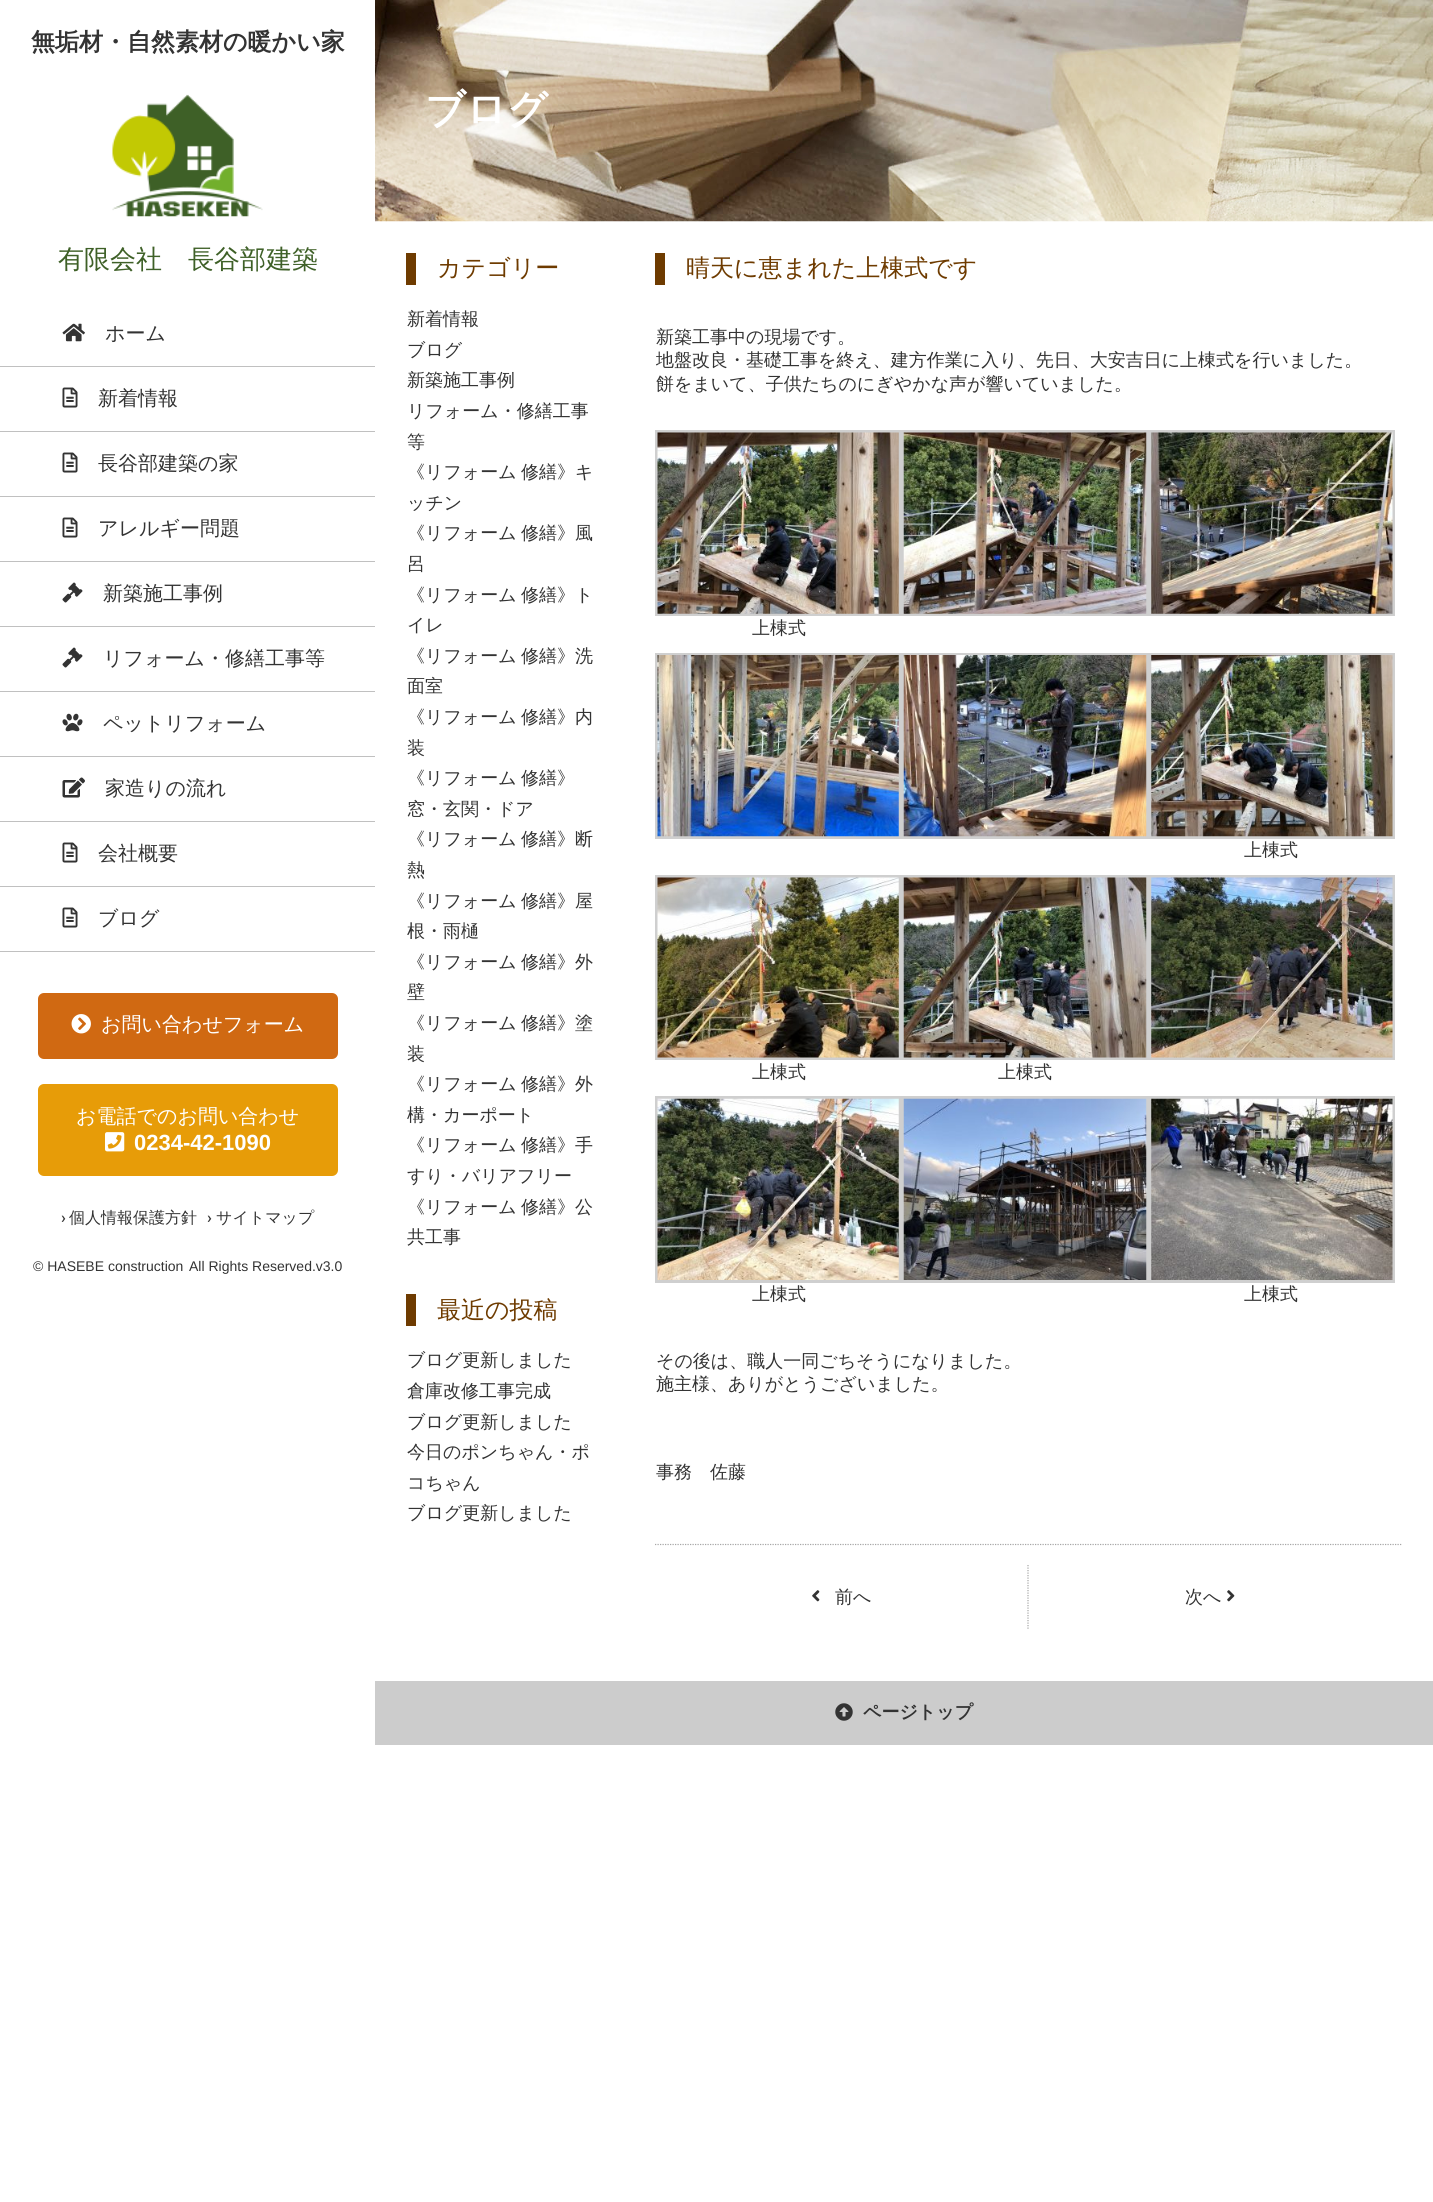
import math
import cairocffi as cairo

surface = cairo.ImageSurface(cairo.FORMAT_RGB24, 1433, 2202)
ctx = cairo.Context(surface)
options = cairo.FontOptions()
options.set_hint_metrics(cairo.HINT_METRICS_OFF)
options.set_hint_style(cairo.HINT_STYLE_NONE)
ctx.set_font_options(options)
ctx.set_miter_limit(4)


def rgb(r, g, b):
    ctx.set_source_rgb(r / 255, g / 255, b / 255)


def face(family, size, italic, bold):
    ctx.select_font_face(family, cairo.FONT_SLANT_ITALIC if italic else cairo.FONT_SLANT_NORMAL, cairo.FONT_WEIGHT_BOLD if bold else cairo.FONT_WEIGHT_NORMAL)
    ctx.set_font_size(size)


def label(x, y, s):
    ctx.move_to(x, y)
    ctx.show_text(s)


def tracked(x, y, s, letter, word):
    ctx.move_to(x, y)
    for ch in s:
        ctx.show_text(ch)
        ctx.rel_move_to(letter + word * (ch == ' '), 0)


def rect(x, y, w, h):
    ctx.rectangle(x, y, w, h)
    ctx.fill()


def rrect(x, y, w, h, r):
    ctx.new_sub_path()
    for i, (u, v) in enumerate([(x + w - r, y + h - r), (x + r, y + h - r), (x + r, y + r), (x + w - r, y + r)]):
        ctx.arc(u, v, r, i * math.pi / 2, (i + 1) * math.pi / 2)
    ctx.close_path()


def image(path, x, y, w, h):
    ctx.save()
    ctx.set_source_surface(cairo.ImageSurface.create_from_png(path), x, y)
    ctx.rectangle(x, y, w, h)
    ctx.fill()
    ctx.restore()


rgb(255, 255, 255)
ctx.paint()
face('WenQuanYi Zen Hei', 24, 0, 1)
rgb(51, 51, 51)
label(31, 50, '無垢材・自然素材の暖かい家')
image('image0.png', 112, 94, 151, 123)
face('WenQuanYi Zen Hei Medium', 26, 0, 0)
rgb(62, 96, 39)
label(58, 268, '有限会社　長谷部建築')
rgb(192, 192, 192)
rect(0, 366, 375, 1)
image('image1.png', 62, 323, 23, 19)
face('WenQuanYi Zen Hei Medium', 20, 0, 0)
rgb(51, 51, 51)
label(105, 340, 'ホーム')
rgb(192, 192, 192)
rect(0, 431, 375, 1)
image('image2.png', 62, 387, 16, 21)
rgb(51, 51, 51)
label(98, 405, '新着情報')
rgb(192, 192, 192)
rect(0, 496, 375, 1)
image('image2.png', 62, 452, 16, 21)
rgb(51, 51, 51)
label(98, 470, '長谷部建築の家')
rgb(192, 192, 192)
rect(0, 561, 375, 1)
image('image2.png', 62, 517, 16, 21)
rgb(51, 51, 51)
label(98, 535, 'アレルギー問題')
rgb(192, 192, 192)
rect(0, 626, 375, 1)
image('image3.png', 62, 582, 21, 21)
rgb(51, 51, 51)
label(103, 600, '新築施工事例')
rgb(192, 192, 192)
rect(0, 691, 375, 1)
image('image3.png', 62, 647, 21, 21)
rgb(51, 51, 51)
label(103, 665, 'リフォーム・修繕工事等')
rgb(192, 192, 192)
rect(0, 756, 375, 1)
image('image4.png', 62, 713, 21, 19)
rgb(51, 51, 51)
label(103, 730, 'ペットリフォーム')
rgb(192, 192, 192)
rect(0, 821, 375, 1)
image('image5.png', 62, 777, 23, 21)
rgb(51, 51, 51)
label(105, 795, '家造りの流れ')
rgb(192, 192, 192)
rect(0, 886, 375, 1)
image('image2.png', 62, 842, 16, 21)
rgb(51, 51, 51)
label(98, 860, '会社概要')
rgb(192, 192, 192)
rect(0, 951, 375, 1)
image('image2.png', 62, 907, 16, 21)
rgb(51, 51, 51)
label(98, 925, 'ブログ')
rgb(208, 105, 18)
rrect(38, 993, 300, 66, 6)
ctx.fill()
image('image6.png', 71, 1014, 20, 20)
rgb(255, 255, 255)
label(101, 1031, 'お問い合わせフォーム')
rgb(231, 156, 8)
rrect(38, 1084, 300, 92, 6)
ctx.fill()
rgb(255, 255, 255)
label(76, 1123, 'お電話でのお問い合わせ')
image('image7.png', 105, 1132, 20, 20)
face('Liberation Sans', 22, 0, 1)
label(134, 1150, '0234-42-1090')
face('Roboto Medium', 16, 0, 0)
rgb(51, 51, 51)
label(61, 1223, '›')
face('WenQuanYi Zen Hei Medium', 16, 0, 0)
label(69, 1223, '個人情報保護方針')
face('Roboto Medium', 16, 0, 0)
label(207, 1223, '›')
face('WenQuanYi Zen Hei Medium', 16, 0, 0)
label(216, 1223, 'サイトマップ')
face('Liberation Sans', 14, 0, 0)
label(33, 1271, '© HASEBE construction')
label(189, 1271, 'All Rights Reserved.v3.0')
image('image8.png', 375, 0, 1058, 222)
face('WenQuanYi Zen Hei', 40, 0, 1)
rgb(255, 255, 255)
label(425, 123, 'ブログ')
rgb(110, 59, 0)
rect(406, 253, 10, 32)
face('WenQuanYi Zen Hei Medium', 24, 0, 0)
label(437, 276, 'カテゴリー')
face('WenQuanYi Zen Hei Medium', 18, 0, 0)
rgb(51, 51, 51)
label(407, 325, '新着情報')
label(407, 356, 'ブログ')
label(407, 386, '新築施工事例')
label(407, 417, 'リフォーム・修繕工事')
label(407, 448, '等')
tracked(407, 478, '《リフォーム 修繕》キ', 0, -1)
label(407, 509, 'ッチン')
tracked(407, 539, '《リフォーム 修繕》風', 0, -1)
label(407, 570, '呂')
tracked(407, 601, '《リフォーム 修繕》ト', 0, -1)
label(407, 631, 'イレ')
tracked(407, 662, '《リフォーム 修繕》洗', 0, -1)
label(407, 692, '面室')
tracked(407, 723, '《リフォーム 修繕》内', 0, -1)
label(407, 754, '装')
tracked(407, 784, '《リフォーム 修繕》', 0, -1)
label(407, 815, '窓・玄関・ドア')
tracked(407, 845, '《リフォーム 修繕》断', 0, -1)
label(407, 876, '熱')
tracked(407, 907, '《リフォーム 修繕》屋', 0, -1)
label(407, 937, '根・雨樋')
tracked(407, 968, '《リフォーム 修繕》外', 0, -1)
label(407, 998, '壁')
tracked(407, 1029, '《リフォーム 修繕》塗', 0, -1)
label(407, 1060, '装')
tracked(407, 1090, '《リフォーム 修繕》外', 0, -1)
label(407, 1121, '構・カーポート')
tracked(407, 1151, '《リフォーム 修繕》手', 0, -1)
label(407, 1182, 'すり・バリアフリー')
tracked(407, 1213, '《リフォーム 修繕》公', 0, -1)
label(407, 1243, '共工事')
rgb(110, 59, 0)
rect(406, 1294, 10, 32)
face('WenQuanYi Zen Hei Medium', 24, 0, 0)
label(437, 1318, '最近の投稿')
face('WenQuanYi Zen Hei Medium', 18, 0, 0)
rgb(51, 51, 51)
label(407, 1366, 'ブログ更新しました')
label(407, 1397, '倉庫改修工事完成')
label(407, 1428, 'ブログ更新しました')
label(407, 1458, '今日のポンちゃん・ポ')
label(407, 1489, 'コちゃん')
label(407, 1519, 'ブログ更新しました')
rgb(110, 59, 0)
rect(655, 253, 10, 32)
face('WenQuanYi Zen Hei Medium', 24, 0, 0)
label(686, 276, '晴天に恵まれた上棟式です')
face('WenQuanYi Zen Hei Medium', 18, 0, 0)
rgb(51, 51, 51)
label(656, 343, '新築工事中の現場です。')
label(656, 366, '地盤改良・基礎工事を終え、建方作業に入り、先日、大安吉日に上棟式を行いました。')
label(656, 390, '餅をまいて、子供たちのにぎやかな声が響いていました。')
ctx.rectangle(902.5, 431.5, 245, 183)
rgb(207, 207, 207)
ctx.set_line_width(3)
ctx.stroke()
image('image9.png', 903, 432, 244, 182)
ctx.rectangle(1150.5, 431.5, 243, 183)
ctx.stroke()
image('image10.png', 1151, 432, 242, 182)
ctx.rectangle(656.5, 431.5, 243, 183)
ctx.stroke()
image('image11.png', 657, 432, 242, 182)
rgb(51, 51, 51)
label(752, 634, '上棟式')
ctx.rectangle(656.5, 654.5, 243, 183)
rgb(207, 207, 207)
ctx.stroke()
image('image12.png', 657, 655, 242, 182)
ctx.rectangle(902.5, 654.5, 245, 183)
ctx.stroke()
image('image13.png', 903, 655, 244, 182)
ctx.rectangle(1150.5, 654.5, 243, 183)
ctx.stroke()
image('image14.png', 1151, 655, 242, 182)
rgb(51, 51, 51)
label(1244, 856, '上棟式')
ctx.rectangle(1150.5, 876.5, 243, 182)
rgb(207, 207, 207)
ctx.stroke()
image('image15.png', 1151, 877, 242, 181)
ctx.rectangle(656.5, 876.5, 243, 182)
ctx.stroke()
image('image16.png', 657, 877, 242, 181)
rgb(51, 51, 51)
label(752, 1078, '上棟式')
ctx.rectangle(902.5, 876.5, 245, 182)
rgb(207, 207, 207)
ctx.stroke()
image('image17.png', 903, 877, 244, 181)
rgb(51, 51, 51)
label(998, 1078, '上棟式')
ctx.rectangle(902.5, 1097.5, 245, 184)
rgb(207, 207, 207)
ctx.stroke()
image('image18.png', 903, 1098, 244, 182)
ctx.rectangle(656.5, 1097.5, 243, 184)
ctx.stroke()
image('image19.png', 657, 1098, 242, 182)
rgb(51, 51, 51)
label(752, 1300, '上棟式')
ctx.rectangle(1150.5, 1097.5, 243, 184)
rgb(207, 207, 207)
ctx.stroke()
image('image20.png', 1151, 1098, 242, 182)
rgb(51, 51, 51)
label(1244, 1300, '上棟式')
label(656, 1367, 'その後は、職人一同ごちそうになりました。')
label(656, 1390, '施主様、ありがとうございました。')
label(656, 1478, '事務　佐藤')
ctx.new_path()
ctx.move_to(655, 1544.5)
ctx.line_to(1402.5, 1544.5)
rgb(166, 166, 166)
ctx.set_line_width(1.2)
ctx.set_dash([1.25, 1.25])
ctx.stroke()
ctx.new_path()
ctx.move_to(1028, 1565)
ctx.line_to(1028, 1629)
ctx.stroke()
image('image21.png', 812, 1590, 8, 12)
rgb(51, 51, 51)
label(835, 1603, '前へ')
label(1185, 1603, '次へ')
image('image22.png', 1227, 1590, 8, 12)
rgb(204, 204, 204)
rect(375, 1681, 1058, 64)
image('image23.png', 835, 1703, 18, 18)
face('WenQuanYi Zen Hei', 18, 0, 1)
rgb(51, 51, 51)
label(863, 1718, 'ページトップ')
surface.write_to_png('render.png')
